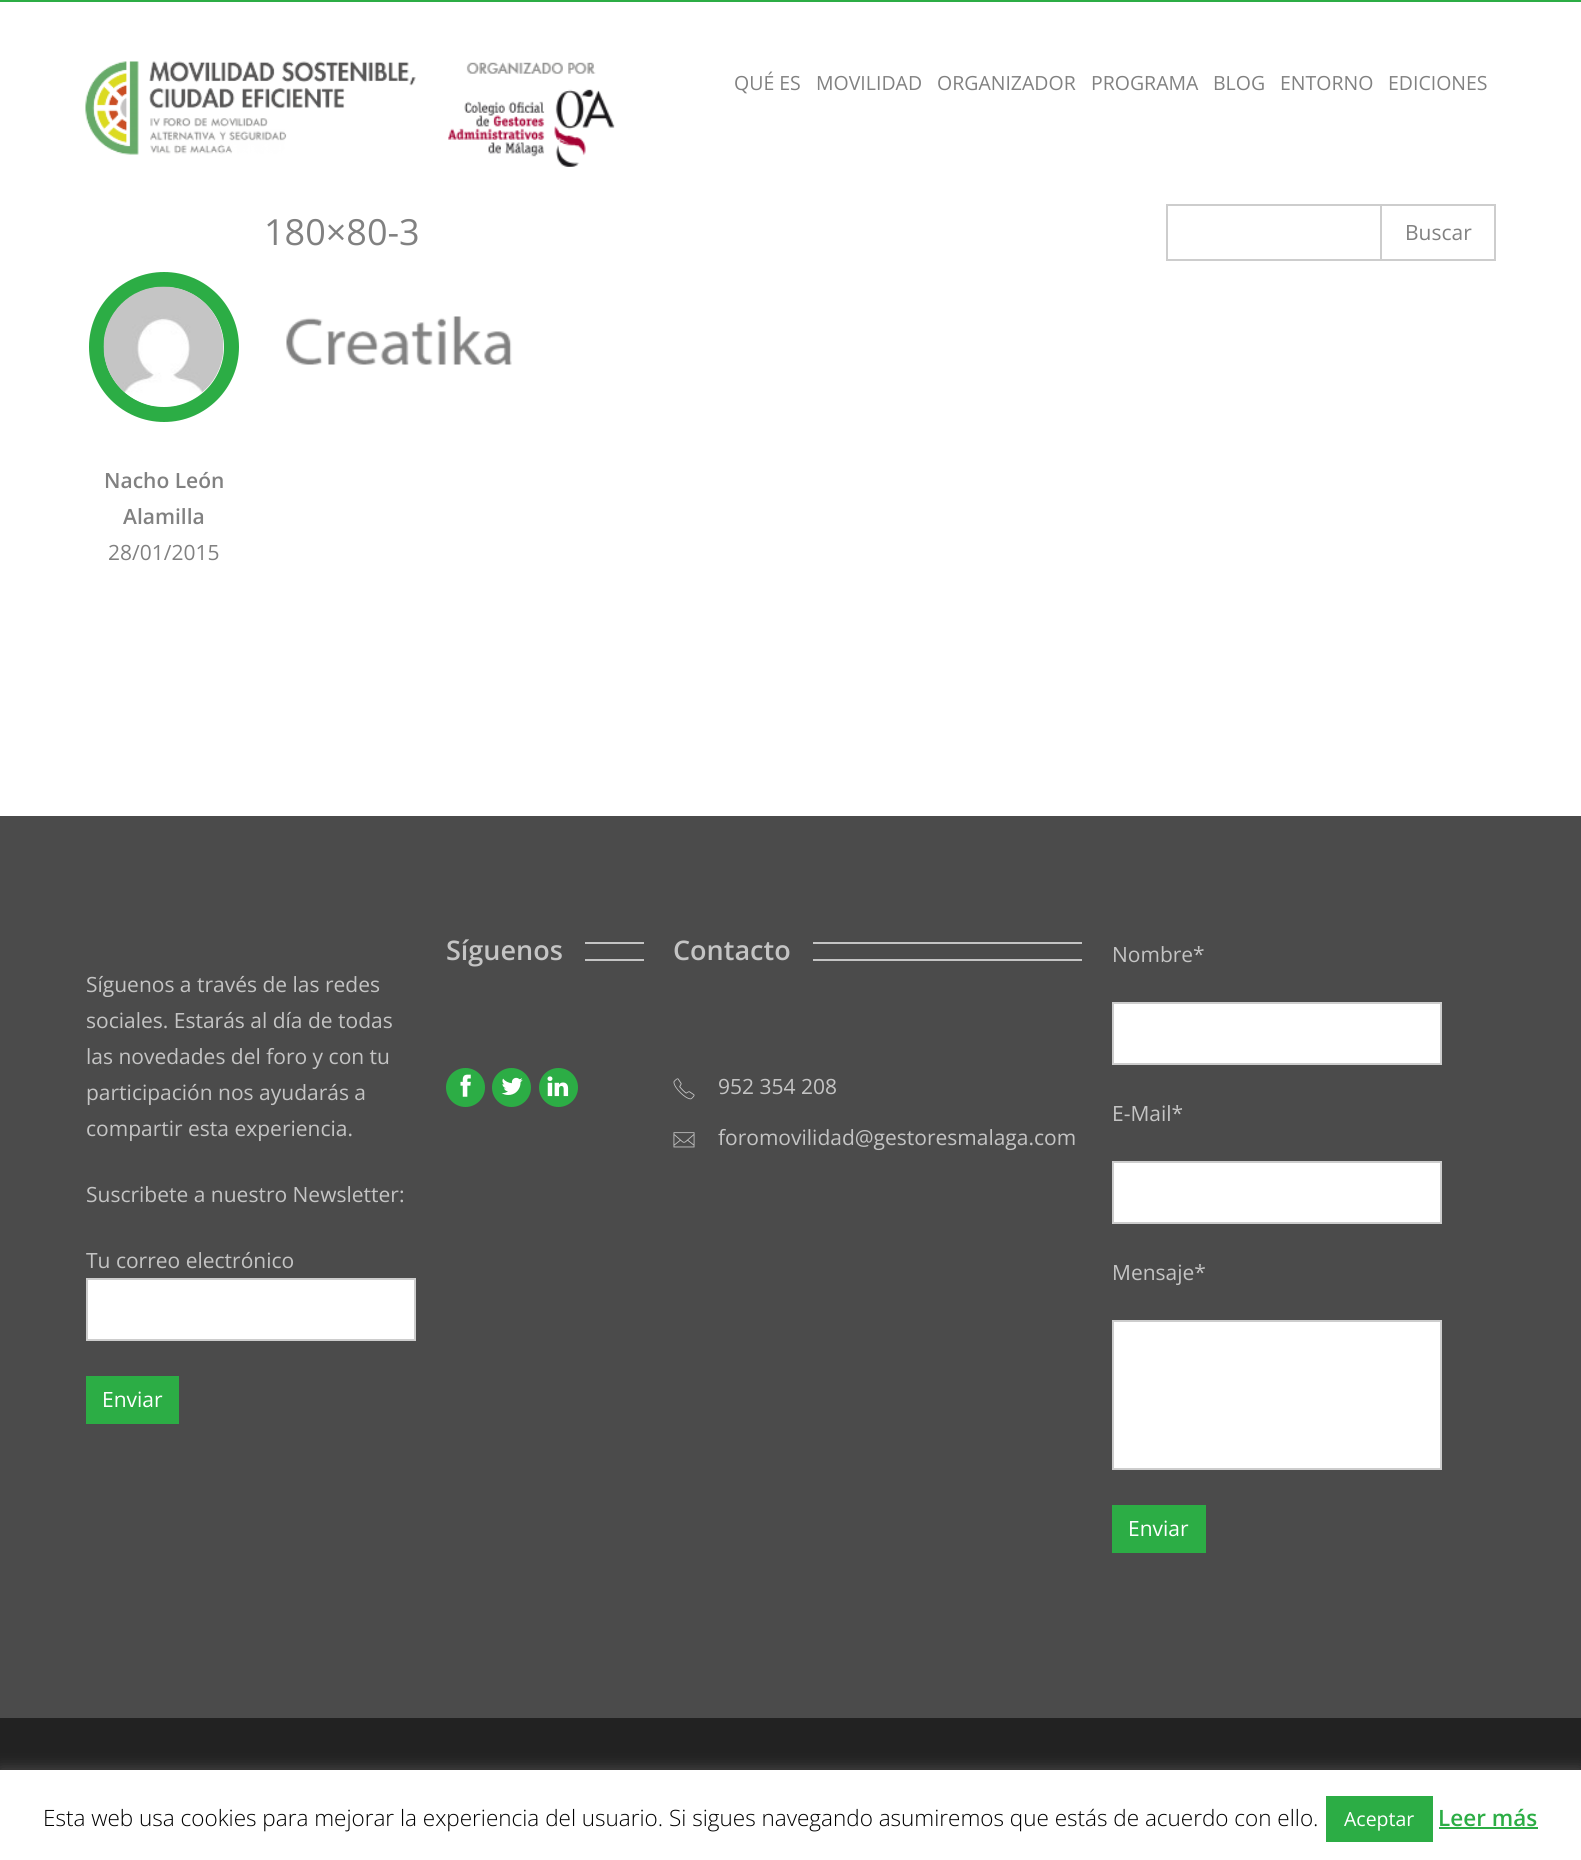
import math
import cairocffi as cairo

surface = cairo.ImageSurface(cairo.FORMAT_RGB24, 1581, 1860)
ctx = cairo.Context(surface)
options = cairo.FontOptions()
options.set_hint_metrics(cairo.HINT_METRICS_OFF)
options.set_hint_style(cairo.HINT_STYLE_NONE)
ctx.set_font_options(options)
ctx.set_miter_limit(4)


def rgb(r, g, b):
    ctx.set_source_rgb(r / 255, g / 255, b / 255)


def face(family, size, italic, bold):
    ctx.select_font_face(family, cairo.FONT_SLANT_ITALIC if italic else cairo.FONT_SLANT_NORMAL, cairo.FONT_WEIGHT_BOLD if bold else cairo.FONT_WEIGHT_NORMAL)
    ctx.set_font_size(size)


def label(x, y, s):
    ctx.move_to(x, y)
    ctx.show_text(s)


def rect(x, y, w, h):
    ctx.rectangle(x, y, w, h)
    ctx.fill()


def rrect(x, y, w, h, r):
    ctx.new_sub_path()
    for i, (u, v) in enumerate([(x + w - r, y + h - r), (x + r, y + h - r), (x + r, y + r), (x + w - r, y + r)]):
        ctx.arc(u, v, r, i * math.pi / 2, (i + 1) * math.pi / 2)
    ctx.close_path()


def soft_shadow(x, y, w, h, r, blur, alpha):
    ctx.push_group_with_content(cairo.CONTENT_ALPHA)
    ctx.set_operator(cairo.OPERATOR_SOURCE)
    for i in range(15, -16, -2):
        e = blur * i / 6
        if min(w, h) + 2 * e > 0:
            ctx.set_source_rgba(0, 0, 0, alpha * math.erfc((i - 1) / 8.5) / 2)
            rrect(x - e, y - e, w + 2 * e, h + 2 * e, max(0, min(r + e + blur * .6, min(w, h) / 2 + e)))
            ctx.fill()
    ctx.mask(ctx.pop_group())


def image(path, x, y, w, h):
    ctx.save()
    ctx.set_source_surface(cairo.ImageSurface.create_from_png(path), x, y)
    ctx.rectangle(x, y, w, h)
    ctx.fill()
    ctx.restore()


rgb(255, 255, 255)
ctx.paint()
rgb(44, 173, 69)
rect(0, 0, 1581, 2)
image('image0.png', 85, 61, 331, 94)
image('image1.png', 448, 62, 167, 105)
face('Open Sans', 19.5, 0, 0)
rgb(129, 129, 129)
label(734, 90, 'QUÉ ES')
label(816, 90, 'MOVILIDAD')
label(937, 90, 'ORGANIZADOR')
label(1091, 90, 'PROGRAMA')
label(1213, 90, 'BLOG')
label(1280, 90, 'ENTORNO')
label(1388, 90, 'EDICIONES')
face('Open Sans', 36, 0, 0)
label(264, 245, '180×80-3')
image('image2.png', 286, 316, 226, 49)
ctx.arc(164, 347, 67.5, 0, 2 * math.pi)
rgb(44, 173, 69)
ctx.set_line_width(15)
ctx.stroke()
image('image3.png', 103, 286, 121, 121)
face('Open Sans SemiBold', 21, 0, 0)
rgb(129, 129, 129)
label(104, 488, 'Nacho León')
label(123, 524, 'Alamilla')
face('Open Sans', 21, 0, 0)
label(108, 560, '28/01/2015')
ctx.rectangle(1167, 205, 328, 55)
rgb(205, 205, 205)
ctx.set_line_width(2)
ctx.stroke()
ctx.rectangle(1381, 205, 114, 55)
ctx.stroke()
rgb(129, 129, 129)
label(1405, 240, 'Buscar')
rgb(75, 75, 75)
rect(0, 816, 1581, 902)
rgb(196, 196, 196)
label(86, 992, 'Síguenos a través de las redes')
label(86, 1028, 'sociales. Estarás al día de todas')
label(86, 1064, 'las novedades del foro y con tu')
label(86, 1100, 'participación nos ayudarás a')
label(86, 1136, 'compartir esta experiencia.')
label(86, 1202, 'Suscribete a nuestro Newsletter:')
label(86, 1268, 'Tu correo electrónico')
rgb(255, 255, 255)
ctx.rectangle(87, 1279, 328, 61)
ctx.fill_preserve()
rgb(205, 205, 205)
ctx.stroke()
rgb(44, 173, 69)
rect(86, 1376, 93, 48)
rgb(255, 255, 255)
label(102, 1407, 'Enviar')
face('Open Sans SemiBold', 27, 0, 0)
rgb(196, 196, 196)
label(446, 960, 'Síguenos')
rect(585, 942, 59, 2)
rect(585, 959, 59, 2)
rgb(44, 173, 69)
ctx.new_path()
ctx.arc(465.5, 1087.5, 19.5, 0, 2 * math.pi)
ctx.fill()
image('image4.png', 460, 1074, 11, 23)
ctx.arc(511.5, 1087.5, 19.5, 0, 2 * math.pi)
ctx.fill()
image('image5.png', 501, 1077, 22, 18)
ctx.arc(558.5, 1087.5, 19.5, 0, 2 * math.pi)
ctx.fill()
image('image6.png', 547, 1076, 22, 21)
rgb(196, 196, 196)
label(673, 960, 'Contacto')
rect(813, 942, 269, 2)
rect(813, 959, 269, 2)
image('image7.png', 673, 1078, 22, 22)
face('Open Sans', 21, 0, 0)
label(718, 1094, '952 354 208')
image('image8.png', 673, 1132, 22, 16)
label(718, 1145, 'foromovilidad@gestoresmalaga.com')
label(1112, 962, 'Nombre*')
rgb(255, 255, 255)
ctx.rectangle(1113, 1003, 328, 61)
ctx.fill_preserve()
rgb(205, 205, 205)
ctx.stroke()
rgb(196, 196, 196)
label(1112, 1121, 'E-Mail*')
rgb(255, 255, 255)
ctx.rectangle(1113, 1162, 328, 61)
ctx.fill_preserve()
rgb(205, 205, 205)
ctx.stroke()
rgb(196, 196, 196)
label(1112, 1280, 'Mensaje*')
rgb(255, 255, 255)
ctx.rectangle(1113, 1321, 328, 148)
ctx.fill_preserve()
rgb(205, 205, 205)
ctx.stroke()
rgb(44, 173, 69)
rect(1112, 1505, 94, 48)
rgb(255, 255, 255)
label(1128, 1536, 'Enviar')
rgb(34, 34, 34)
rect(0, 1718, 1581, 52)
rgb(172, 171, 171)
soft_shadow(0, 1769, 1581, 90, 0, 7.5, 0.3)
rgb(255, 255, 255)
rect(0, 1770, 1581, 90)
face('Open Sans Light', 22.5, 0, 0)
rgb(0, 0, 0)
label(43, 1826, 'Esta web usa cookies para mejorar la experiencia del usuario. Si sigues navegando asumiremos que estás de acuerdo con ello.')
rgb(44, 173, 69)
rect(1326, 1796, 107, 46)
face('Open Sans', 19.5, 0, 0)
rgb(255, 255, 255)
label(1344, 1826, 'Aceptar')
face('Open Sans SemiBold', 22.5, 0, 0)
rgb(44, 173, 69)
label(1438, 1826, 'Leer más')
rect(1439, 1827, 99, 2)
surface.write_to_png('render.png')
